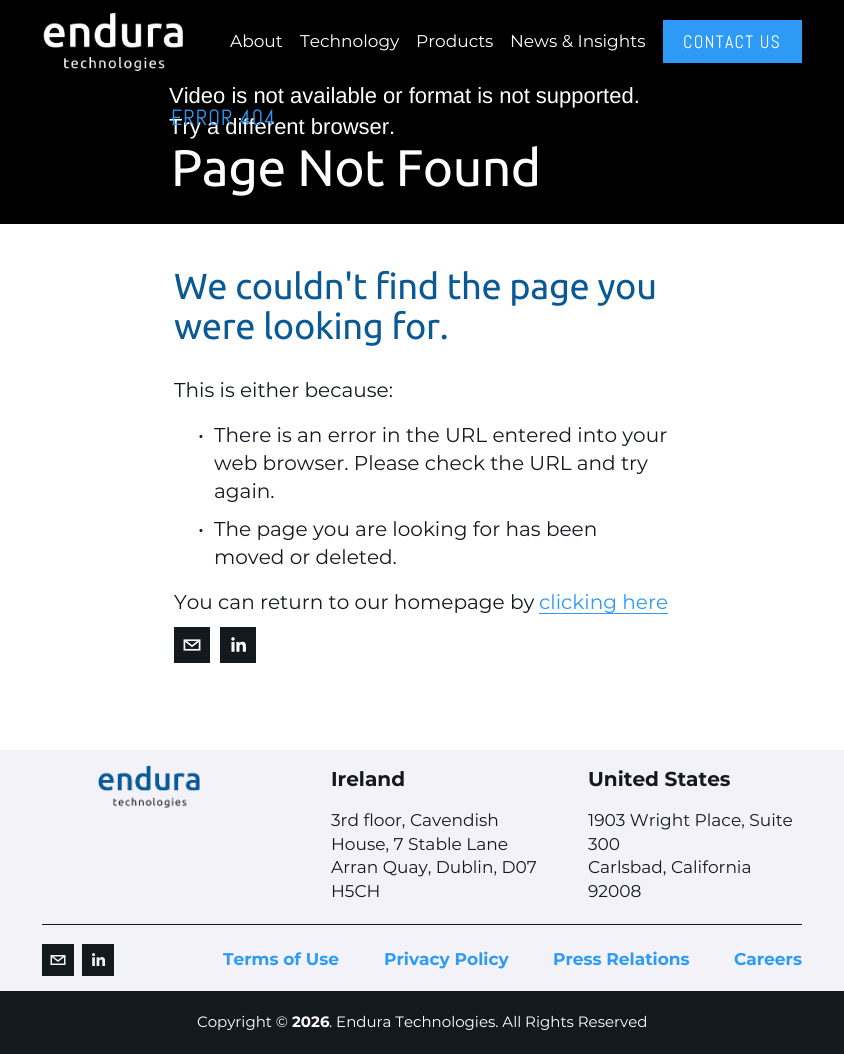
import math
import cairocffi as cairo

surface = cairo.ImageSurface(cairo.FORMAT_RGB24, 844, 1054)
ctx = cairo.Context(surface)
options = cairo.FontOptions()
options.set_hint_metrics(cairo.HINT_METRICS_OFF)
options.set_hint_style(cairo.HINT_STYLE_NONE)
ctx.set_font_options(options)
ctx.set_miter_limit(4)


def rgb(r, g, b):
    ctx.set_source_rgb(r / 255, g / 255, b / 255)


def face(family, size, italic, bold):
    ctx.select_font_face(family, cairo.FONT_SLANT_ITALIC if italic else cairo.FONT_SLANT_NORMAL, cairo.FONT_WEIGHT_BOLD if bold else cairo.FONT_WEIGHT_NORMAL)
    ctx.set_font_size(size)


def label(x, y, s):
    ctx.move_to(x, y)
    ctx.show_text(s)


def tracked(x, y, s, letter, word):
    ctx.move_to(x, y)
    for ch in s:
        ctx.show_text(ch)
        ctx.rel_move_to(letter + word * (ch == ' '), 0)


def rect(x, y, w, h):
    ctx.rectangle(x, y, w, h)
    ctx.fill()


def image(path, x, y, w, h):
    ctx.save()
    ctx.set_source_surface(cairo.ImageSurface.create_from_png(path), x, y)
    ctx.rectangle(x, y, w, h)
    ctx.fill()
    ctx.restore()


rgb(255, 255, 255)
ctx.paint()
rgb(0, 0, 0)
rect(0, 0, 844, 224)
image('image0.png', 43, 12, 140, 59)
face('Montserrat', 17, 0, 0)
rgb(255, 255, 255)
label(230, 47, 'About')
label(300, 47, 'Technology')
label(416, 47, 'Products')
label(510, 47, 'News & Insights')
rgb(45, 154, 246)
rect(663, 20, 139, 43)
face('Abel', 18, 0, 0)
rgb(255, 255, 255)
tracked(683, 48, 'CONTACT US', 1.25, 0)
face('Liberation Sans', 22, 0, 0)
label(169, 103, 'Video is not available or format is not supported.')
label(169, 134, 'Try a different browser.')
face('Abel', 22, 0, 0)
rgb(45, 154, 246)
tracked(171, 125, 'ERROR 404', 1, 0)
face('Ubuntu', 51.5, 0, 0)
rgb(255, 255, 255)
tracked(171, 186, 'Page Not Found', -0.5, 0)
face('Ubuntu', 36.25, 0, 0)
rgb(8, 89, 149)
tracked(174, 299, 'We couldn\'t find the page you', -0.35, 0)
tracked(174, 339, 'were looking for.', -0.35, 0)
face('Montserrat', 20.05, 0, 0)
rgb(20, 25, 30)
label(174, 397, 'This is either because:')
label(198, 442, '•')
label(214, 442, 'There is an error in the URL entered into your')
label(214, 470, 'web browser. Please check the URL and try')
label(214, 498, 'again.')
label(198, 536, '•')
label(214, 536, 'The page you are looking for has been')
label(214, 564, 'moved or deleted.')
label(174, 609, 'You can return to our homepage by')
rgb(45, 154, 246)
label(539, 609, 'clicking here')
rect(539, 613, 129, 1)
image('image1.png', 174, 627, 36, 36)
image('image2.png', 220, 627, 36, 36)
rgb(242, 242, 248)
rect(0, 750, 844, 241)
image('image3.png', 98, 765, 102, 43)
face('Montserrat', 20.05, 0, 1)
rgb(20, 25, 30)
label(331, 786, 'Ireland')
face('Montserrat', 17, 0, 0)
label(331, 826, '3rd floor, Cavendish')
label(331, 850, 'House, 7 Stable Lane')
label(331, 873, 'Arran Quay, Dublin, D07')
label(331, 897, 'H5CH')
face('Montserrat', 20.05, 0, 1)
label(588, 786, 'United States')
face('Montserrat', 17, 0, 0)
label(588, 826, '1903 Wright Place, Suite')
label(588, 850, '300')
label(588, 873, 'Carlsbad, California')
label(588, 897, '92008')
rect(42, 924, 760, 1)
image('image4.png', 42, 944, 32, 32)
image('image5.png', 82, 944, 32, 32)
face('Montserrat', 17, 0, 1)
rgb(45, 154, 246)
label(223, 965, 'Terms of Use')
label(384, 965, 'Privacy Policy')
label(553, 965, 'Press Relations')
label(734, 965, 'Careers')
rgb(20, 25, 30)
rect(0, 991, 844, 63)
face('Montserrat', 15, 0, 0)
rgb(255, 255, 255)
label(197, 1027, 'Copyright ©')
face('Montserrat', 15, 0, 1)
label(292, 1027, '2026')
face('Montserrat', 15, 0, 0)
label(329, 1027, '. Endura Technologies. All Rights Reserved')
surface.write_to_png('render.png')
